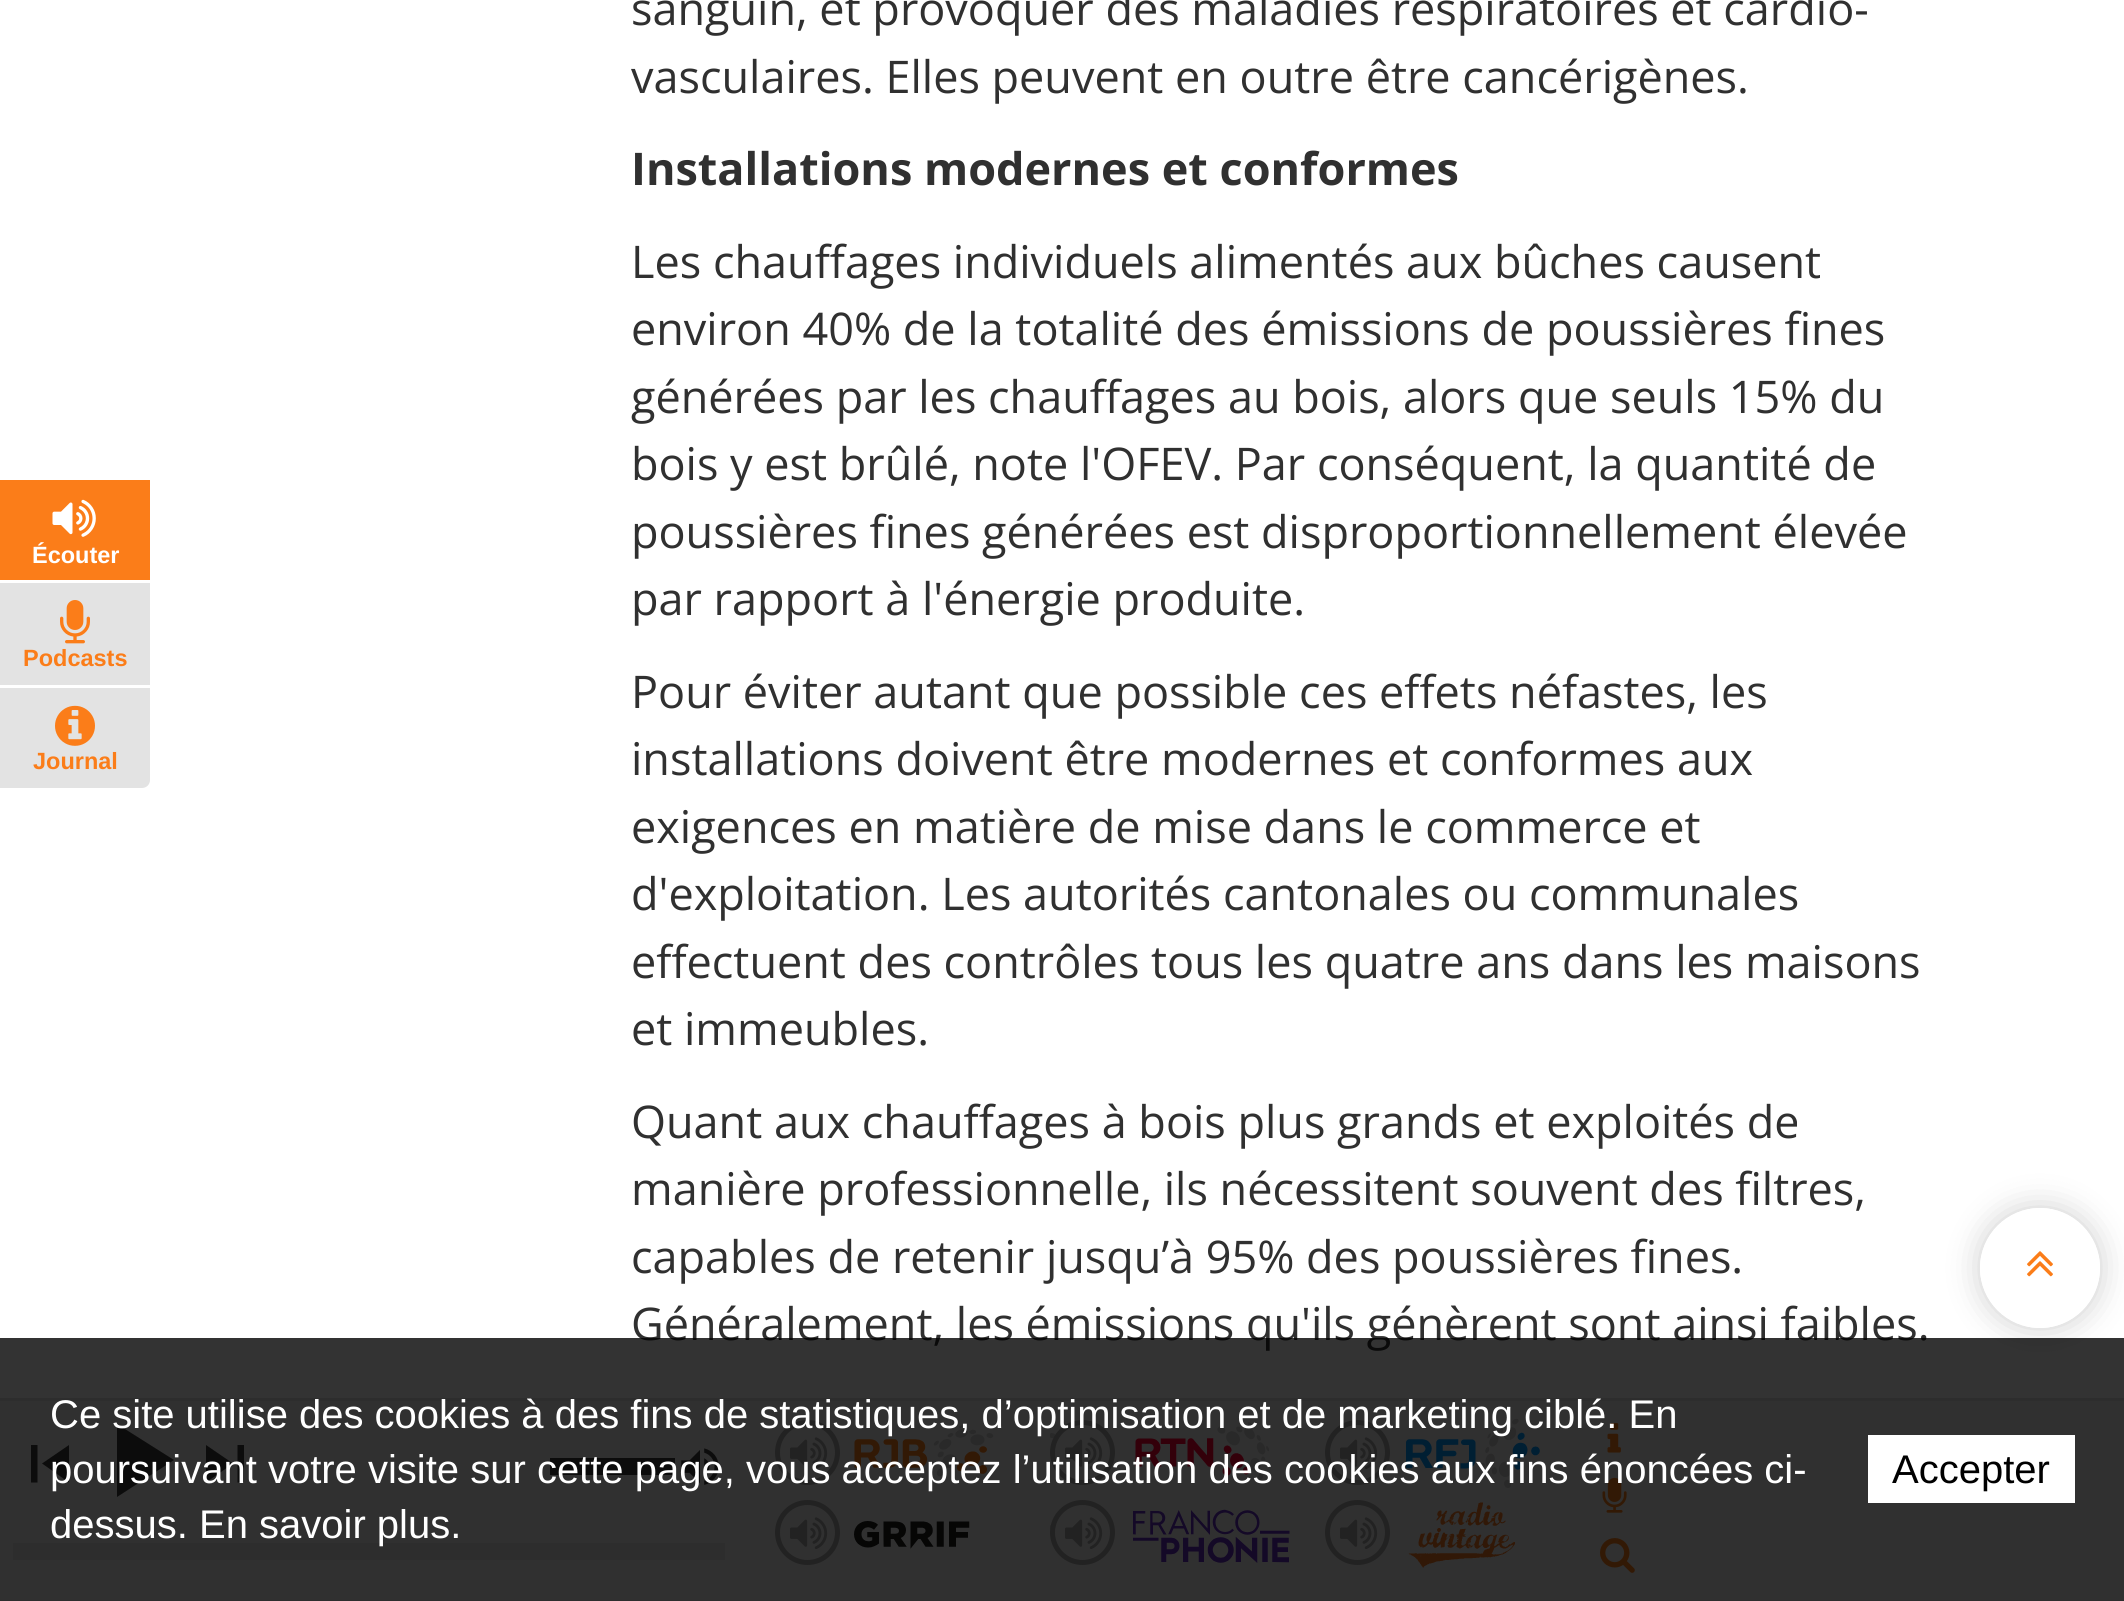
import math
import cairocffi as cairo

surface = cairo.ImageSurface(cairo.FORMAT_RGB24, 2124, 1601)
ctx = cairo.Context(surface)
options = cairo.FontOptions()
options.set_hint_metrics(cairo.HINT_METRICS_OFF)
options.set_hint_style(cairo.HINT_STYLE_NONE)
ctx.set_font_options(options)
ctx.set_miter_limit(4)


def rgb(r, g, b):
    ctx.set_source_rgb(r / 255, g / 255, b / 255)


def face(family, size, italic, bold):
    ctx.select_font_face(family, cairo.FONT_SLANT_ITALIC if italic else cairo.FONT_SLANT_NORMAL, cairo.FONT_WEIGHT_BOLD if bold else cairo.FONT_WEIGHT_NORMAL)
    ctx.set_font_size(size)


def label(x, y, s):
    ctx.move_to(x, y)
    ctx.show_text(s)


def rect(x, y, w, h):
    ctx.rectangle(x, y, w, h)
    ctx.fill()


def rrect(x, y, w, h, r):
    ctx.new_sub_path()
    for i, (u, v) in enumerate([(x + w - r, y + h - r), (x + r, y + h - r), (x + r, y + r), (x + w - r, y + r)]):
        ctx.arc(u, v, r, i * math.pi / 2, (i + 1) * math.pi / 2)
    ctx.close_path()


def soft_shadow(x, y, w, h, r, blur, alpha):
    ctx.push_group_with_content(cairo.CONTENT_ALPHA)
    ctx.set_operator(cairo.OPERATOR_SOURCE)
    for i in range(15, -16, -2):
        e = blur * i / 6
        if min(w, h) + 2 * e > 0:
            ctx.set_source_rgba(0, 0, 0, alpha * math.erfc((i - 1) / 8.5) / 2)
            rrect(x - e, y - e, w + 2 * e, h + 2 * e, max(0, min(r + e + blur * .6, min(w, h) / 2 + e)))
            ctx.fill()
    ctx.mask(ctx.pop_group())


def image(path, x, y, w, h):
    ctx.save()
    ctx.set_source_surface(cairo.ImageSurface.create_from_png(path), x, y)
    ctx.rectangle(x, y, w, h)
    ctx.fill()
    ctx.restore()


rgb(255, 255, 255)
ctx.paint()
rgb(251, 125, 25)
rect(0, 480, 150, 100)
image('image0.png', 52, 499, 44, 38)
face('Liberation Sans', 23.5, 0, 1)
rgb(255, 255, 255)
label(32, 563, 'Écouter')
rgb(227, 227, 227)
rect(0, 583, 150, 102)
image('image1.png', 60, 600, 30, 44)
rgb(251, 125, 25)
label(23, 666, 'Podcasts')
rgb(227, 227, 227)
ctx.new_path()
ctx.move_to(0, 688)
ctx.line_to(150, 688)
ctx.line_to(150, 780)
ctx.curve_to(150, 784.5, 146.5, 788, 142, 788)
ctx.line_to(0, 788)
ctx.close_path()
ctx.fill()
image('image2.png', 55, 705, 40, 41)
rgb(251, 125, 25)
label(33, 769, 'Journal')
face('Open Sans', 45, 0, 0)
rgb(48, 48, 48)
label(631, 25, 'sanguin, et provoquer des maladies respiratoires et cardio-')
label(631, 93, 'vasculaires. Elles peuvent en outre être cancérigènes.')
face('Open Sans', 45, 0, 1)
label(631, 185, 'Installations modernes et conformes')
face('Open Sans', 45, 0, 0)
label(631, 278, 'Les chauffages individuels alimentés aux bûches causent')
label(631, 345, 'environ 40% de la totalité des émissions de poussières fines')
label(631, 413, 'générées par les chauffages au bois, alors que seuls 15% du')
label(631, 480, 'bois y est brûlé, note l\'OFEV. Par conséquent, la quantité de')
label(631, 548, 'poussières fines générées est disproportionnellement élevée')
label(631, 615, 'par rapport à l\'énergie produite.')
label(631, 708, 'Pour éviter autant que possible ces effets néfastes, les')
label(631, 775, 'installations doivent être modernes et conformes aux')
label(631, 843, 'exigences en matière de mise dans le commerce et')
label(631, 910, 'd\'exploitation. Les autorités cantonales ou communales')
label(631, 978, 'effectuent des contrôles tous les quatre ans dans les maisons')
label(631, 1045, 'et immeubles.')
label(631, 1138, 'Quant aux chauffages à bois plus grands et exploités de')
label(631, 1205, 'manière professionnelle, ils nécessitent souvent des filtres,')
label(631, 1273, 'capables de retenir jusqu’à 95% des poussières fines.')
label(631, 1340, 'Généralement, les émissions qu\'ils génèrent sont ainsi faibles.')
ctx.save()
ctx.set_fill_rule(cairo.FILL_RULE_EVEN_ODD)
ctx.new_path()
ctx.move_to(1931, 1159)
ctx.line_to(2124, 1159)
ctx.line_to(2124, 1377)
ctx.line_to(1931, 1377)
ctx.close_path()
ctx.move_to(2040, 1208)
ctx.curve_to(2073, 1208, 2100, 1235, 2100, 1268)
ctx.curve_to(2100, 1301, 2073, 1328, 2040, 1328)
ctx.curve_to(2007, 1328, 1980, 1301, 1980, 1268)
ctx.curve_to(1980, 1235, 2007, 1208, 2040, 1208)
ctx.close_path()
ctx.clip()
rgb(0, 0, 0)
soft_shadow(1980, 1208, 120, 120, 60, 16, 0.2)
ctx.restore()
ctx.set_source_rgba(1, 1, 1, 0.6)
ctx.arc(2040, 1268, 60, 0, 2 * math.pi)
ctx.fill()
image('image3.png', 2027, 1251, 26, 26)
rgb(240, 240, 240)
rect(0, 1401, 2124, 199)
rgb(224, 224, 224)
rect(0, 1398, 2124, 3)
rect(0, 1600, 2124, 1)
rgb(60, 60, 60)
ctx.new_path()
ctx.move_to(42, 1463.5)
ctx.line_to(69, 1445)
ctx.line_to(69, 1482.5)
ctx.close_path()
ctx.move_to(31, 1445)
ctx.line_to(37.5, 1445)
ctx.line_to(37.5, 1482.5)
ctx.line_to(31, 1482.5)
ctx.close_path()
ctx.fill()
ctx.new_path()
ctx.move_to(117, 1424)
ctx.line_to(174, 1460)
ctx.line_to(117, 1497)
ctx.close_path()
ctx.fill()
ctx.new_path()
ctx.move_to(237.5, 1445)
ctx.line_to(244, 1445)
ctx.line_to(244, 1482.5)
ctx.line_to(237.5, 1482.5)
ctx.close_path()
ctx.move_to(206, 1482.5)
ctx.line_to(206, 1445)
ctx.line_to(233, 1463.5)
ctx.close_path()
ctx.fill()
rect(550, 1458, 125, 17)
image('image4.png', 681, 1448, 38, 37)
ctx.rectangle(14.5, 1544.5, 709, 14)
rgb(227, 227, 227)
ctx.set_line_width(3)
ctx.stroke()
rect(16, 1546, 706, 11)
image('image5.png', 775, 1425, 219, 52)
rgb(240, 240, 240)
ctx.arc(807.5, 1452.5, 30, 0, 2 * math.pi)
ctx.fill_preserve()
rgb(169, 169, 169)
ctx.set_line_width(5)
ctx.stroke()
image('image6.png', 790, 1437, 38, 32)
image('image7.png', 1050, 1422, 219, 58)
rgb(240, 240, 240)
ctx.arc(1082.5, 1452.5, 30, 0, 2 * math.pi)
ctx.fill_preserve()
rgb(169, 169, 169)
ctx.stroke()
image('image6.png', 1065, 1437, 38, 32)
image('image8.png', 1406, 1418, 134, 70)
ctx.arc(1357.5, 1452.5, 30, 0, 2 * math.pi)
ctx.stroke()
image('image6.png', 1340, 1437, 38, 32)
image('image9.png', 854, 1521, 116, 28)
ctx.arc(807.5, 1532.5, 30, 0, 2 * math.pi)
ctx.stroke()
image('image6.png', 790, 1517, 38, 32)
image('image10.png', 1050, 1509, 240, 54)
rgb(240, 240, 240)
ctx.arc(1082.5, 1532.5, 30, 0, 2 * math.pi)
ctx.fill_preserve()
rgb(169, 169, 169)
ctx.stroke()
image('image6.png', 1065, 1517, 38, 32)
image('image11.png', 1408, 1502, 107, 66)
ctx.arc(1357.5, 1532.5, 30, 0, 2 * math.pi)
ctx.stroke()
image('image6.png', 1340, 1517, 38, 32)
image('image12.png', 1607, 1423, 14, 30)
image('image13.png', 1602, 1477, 25, 36)
image('image14.png', 1600, 1538, 35, 35)
ctx.set_source_rgba(0, 0, 0, 0.8)
rect(0, 1338, 2124, 263)
face('Liberation Sans', 40, 0, 0)
rgb(255, 255, 255)
label(50, 1428, 'Ce site utilise des cookies à des fins de statistiques, d’optimisation et de marketing ciblé. En')
label(50, 1483, 'poursuivant votre visite sur cette page, vous acceptez l’utilisation des cookies aux fins énoncées ci-')
label(50, 1538, 'dessus. En savoir plus.')
rect(1868, 1435, 207, 68)
rgb(0, 0, 0)
label(1892, 1483, 'Accepter')
surface.write_to_png('render.png')
